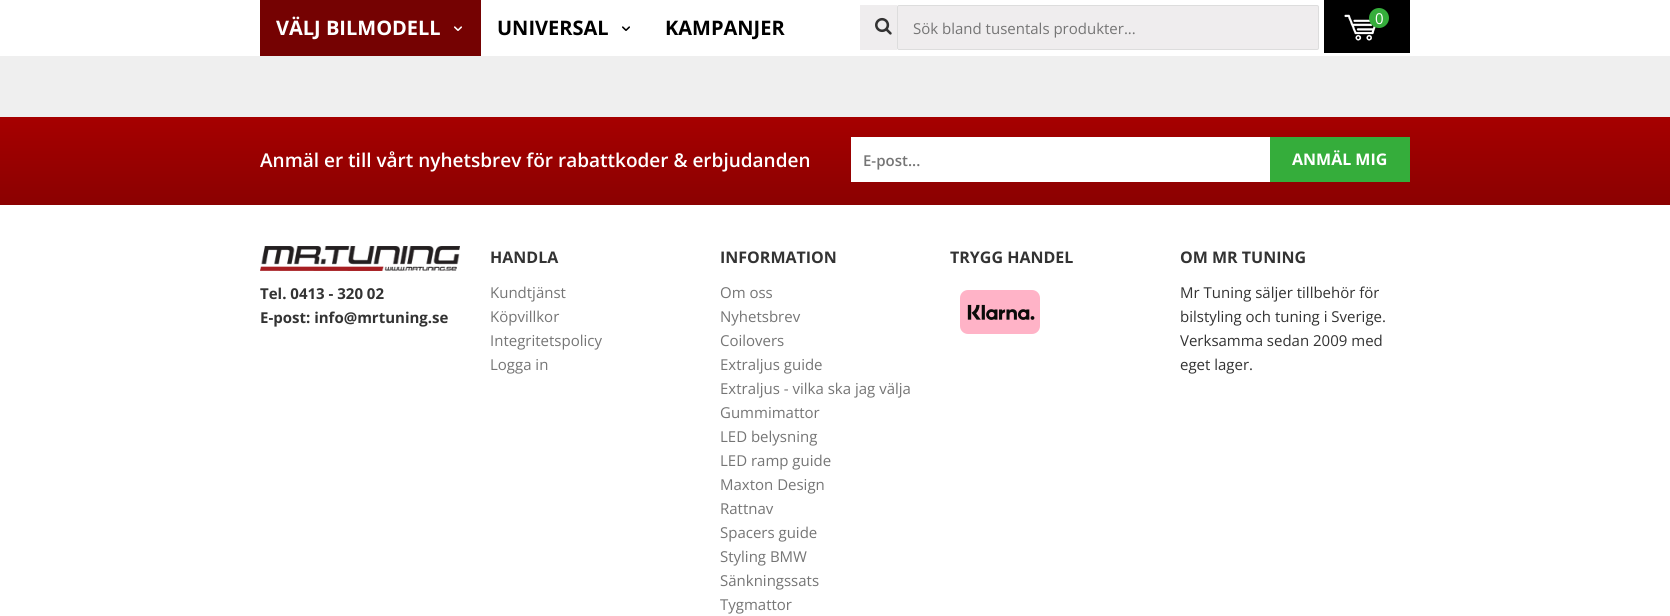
import math
import cairocffi as cairo

surface = cairo.ImageSurface(cairo.FORMAT_RGB24, 1670, 616)
ctx = cairo.Context(surface)
options = cairo.FontOptions()
options.set_hint_metrics(cairo.HINT_METRICS_OFF)
options.set_hint_style(cairo.HINT_STYLE_NONE)
ctx.set_font_options(options)
ctx.set_miter_limit(4)


def rgb(r, g, b):
    ctx.set_source_rgb(r / 255, g / 255, b / 255)


def face(family, size, italic, bold):
    ctx.select_font_face(family, cairo.FONT_SLANT_ITALIC if italic else cairo.FONT_SLANT_NORMAL, cairo.FONT_WEIGHT_BOLD if bold else cairo.FONT_WEIGHT_NORMAL)
    ctx.set_font_size(size)


def label(x, y, s):
    ctx.move_to(x, y)
    ctx.show_text(s)


def rect(x, y, w, h):
    ctx.rectangle(x, y, w, h)
    ctx.fill()


def rrect(x, y, w, h, r):
    ctx.new_sub_path()
    for i, (u, v) in enumerate([(x + w - r, y + h - r), (x + r, y + h - r), (x + r, y + r), (x + w - r, y + r)]):
        ctx.arc(u, v, r, i * math.pi / 2, (i + 1) * math.pi / 2)
    ctx.close_path()


def image(path, x, y, w, h):
    ctx.save()
    ctx.set_source_surface(cairo.ImageSurface.create_from_png(path), x, y)
    ctx.rectangle(x, y, w, h)
    ctx.fill()
    ctx.restore()


rgb(239, 239, 239)
ctx.paint()
rgb(255, 255, 255)
rect(0, 0, 1670, 56)
rgb(117, 2, 2)
rect(260, 0, 221, 56)
face('Open Sans', 20, 0, 1)
rgb(255, 255, 255)
label(276, 35, 'VÄLJ BILMODELL')
image('image0.png', 454, 26, 8, 5)
rgb(0, 0, 0)
label(497, 35, 'UNIVERSAL')
image('image1.png', 622, 26, 8, 5)
label(665, 35, 'KAMPANJER')
rgb(239, 237, 238)
rect(860, 5, 37, 45)
image('image2.png', 875, 17, 17, 18)
rrect(897.5, 5.5, 421, 44, 1.5)
ctx.fill_preserve()
rgb(221, 221, 221)
ctx.set_line_width(1)
ctx.stroke()
face('Open Sans', 15, 0, 0)
rgb(117, 117, 117)
label(913, 34, 'Sök bland tusentals produkter...')
rgb(0, 0, 0)
rect(1324, 0, 86, 53)
image('image3.png', 1344, 14, 32, 27)
rgb(53, 173, 59)
ctx.arc(1379, 18, 10, 0, 2 * math.pi)
ctx.fill()
rgb(255, 255, 255)
label(1375, 24, '0')
gradient = cairo.LinearGradient(835, 117, 835, 205)
gradient.add_color_stop_rgba(0, 0.651, 0, 0, 1)
gradient.add_color_stop_rgba(1, 0.545, 0.004, 0.004, 1)
ctx.set_source(gradient)
rect(0, 117, 1670, 88)
face('Open Sans SemiBold', 19, 0, 0)
rgb(255, 255, 255)
label(260, 167, 'Anmäl er till vårt nyhetsbrev för rabattkoder & erbjudanden')
rect(851, 137, 419, 45)
face('Open Sans SemiBold', 15, 0, 0)
rgb(117, 117, 117)
label(863, 166, 'E-post...')
rgb(53, 173, 59)
rect(1270, 137, 140, 45)
face('Open Sans', 16, 0, 1)
rgb(255, 255, 255)
label(1292, 165, 'ANMÄL MIG')
rect(0, 205, 1670, 411)
image('image4.png', 260, 246, 200, 25)
face('Open Sans', 15, 0, 1)
rgb(51, 51, 51)
label(260, 299, 'Tel. 0413 - 320 02')
label(260, 323, 'E-post: info@mrtuning.se')
face('Open Sans', 16, 0, 1)
label(490, 263, 'HANDLA')
face('Open Sans', 15, 0, 0)
rgb(117, 117, 117)
label(490, 298, 'Kundtjänst')
label(490, 322, 'Köpvillkor')
label(490, 346, 'Integritetspolicy')
label(490, 370, 'Logga in')
face('Open Sans', 16, 0, 1)
rgb(51, 51, 51)
label(720, 263, 'INFORMATION')
face('Open Sans', 15, 0, 0)
rgb(117, 117, 117)
label(720, 298, 'Om oss')
label(720, 322, 'Nyhetsbrev')
label(720, 346, 'Coilovers')
label(720, 370, 'Extraljus guide')
label(720, 394, 'Extraljus - vilka ska jag välja')
label(720, 418, 'Gummimattor')
label(720, 442, 'LED belysning')
label(720, 466, 'LED ramp guide')
label(720, 490, 'Maxton Design')
label(720, 514, 'Rattnav')
label(720, 538, 'Spacers guide')
label(720, 562, 'Styling BMW')
label(720, 586, 'Sänkningssats')
label(720, 610, 'Tygmattor')
face('Open Sans', 16, 0, 1)
rgb(51, 51, 51)
label(950, 263, 'TRYGG HANDEL')
image('image5.png', 960, 290, 80, 44)
label(1180, 263, 'OM MR TUNING')
face('Open Sans', 15, 0, 0)
label(1180, 298, 'Mr Tuning säljer tillbehör för')
label(1180, 322, 'bilstyling och tuning i Sverige.')
label(1180, 346, 'Verksamma sedan 2009 med')
label(1180, 370, 'eget lager.')
surface.write_to_png('render.png')
